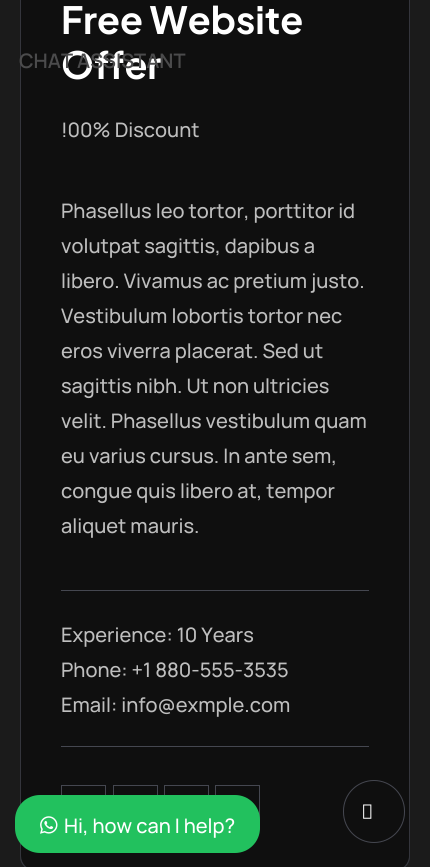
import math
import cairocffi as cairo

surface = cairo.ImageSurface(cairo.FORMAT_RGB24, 430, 867)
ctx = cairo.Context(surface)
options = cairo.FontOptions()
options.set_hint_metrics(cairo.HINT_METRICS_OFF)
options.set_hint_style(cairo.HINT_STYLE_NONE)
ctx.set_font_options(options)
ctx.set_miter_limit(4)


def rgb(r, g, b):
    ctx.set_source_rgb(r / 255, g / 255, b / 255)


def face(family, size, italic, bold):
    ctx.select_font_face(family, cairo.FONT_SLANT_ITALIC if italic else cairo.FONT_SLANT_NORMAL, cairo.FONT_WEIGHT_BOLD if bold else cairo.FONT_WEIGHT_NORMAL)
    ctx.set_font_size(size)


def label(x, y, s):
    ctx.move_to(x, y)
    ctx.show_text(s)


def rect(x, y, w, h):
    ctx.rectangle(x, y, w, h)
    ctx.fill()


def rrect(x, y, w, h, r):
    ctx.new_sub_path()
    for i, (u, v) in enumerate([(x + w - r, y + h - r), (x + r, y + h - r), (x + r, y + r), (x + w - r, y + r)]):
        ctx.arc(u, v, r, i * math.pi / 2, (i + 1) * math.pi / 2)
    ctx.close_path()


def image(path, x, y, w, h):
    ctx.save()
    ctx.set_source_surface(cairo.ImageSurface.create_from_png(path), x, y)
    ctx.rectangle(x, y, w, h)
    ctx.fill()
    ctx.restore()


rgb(27, 27, 27)
ctx.paint()
rrect(20.5, -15.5, 389, 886, 14.5)
rgb(69, 71, 80)
ctx.set_line_width(1)
ctx.stroke()
ctx.set_source_rgba(0, 0, 0, 0.45)
rrect(20, -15, 390, 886, 15)
ctx.fill()
rrect(20.5, -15.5, 389, 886, 14.5)
ctx.set_source_rgba(0.271, 0.278, 0.314, 0.45)
ctx.stroke()
face('Plus Jakarta Sans', 37.5, 0, 1)
rgb(255, 255, 255)
label(61, 34, 'Free Website')
label(61, 79, 'Offer')
face('Manrope Medium', 20, 0, 0)
rgb(190, 190, 190)
label(61, 137, '!00% Discount')
label(61, 218, 'Phasellus leo tortor, porttitor id')
label(61, 253, 'volutpat sagittis, dapibus a')
label(61, 288, 'libero. Vivamus ac pretium justo.')
label(61, 323, 'Vestibulum lobortis tortor nec')
label(61, 358, 'eros viverra placerat. Sed ut')
label(61, 393, 'sagittis nibh. Ut non ultricies')
label(61, 428, 'velit. Phasellus vestibulum quam')
label(61, 463, 'eu varius cursus. In ante sem,')
label(61, 498, 'congue quis libero at, tempor')
label(61, 533, 'aliquet mauris.')
rgb(69, 71, 80)
rect(61, 590, 308, 1)
rect(61, 746, 308, 1)
rgb(190, 190, 190)
label(61, 642, 'Experience: 10 Years')
label(61, 677, 'Phone: +1 880-555-3535')
label(61, 712, 'Email: info@exmple.com')
ctx.rectangle(61.5, 785.5, 44, 44)
rgb(69, 71, 80)
ctx.stroke()
ctx.rectangle(113.5, 785.5, 44, 44)
ctx.stroke()
ctx.rectangle(164.5, 785.5, 44, 44)
ctx.stroke()
ctx.rectangle(215.5, 785.5, 44, 44)
ctx.stroke()
face('Manrope SemiBold', 20, 0, 0)
rgb(75, 75, 76)
label(19, 68, 'CHAT ASSISTANT')
rrect(343.5, 780.5, 61, 62, 30.5)
rgb(69, 71, 80)
ctx.stroke()
image('image0.png', 363, 804, 9, 15)
rgb(34, 193, 94)
rrect(15, 795, 245, 58, 25)
ctx.fill()
image('image1.png', 40, 816, 18, 18)
face('Manrope Medium', 20, 0, 0)
rgb(255, 255, 255)
label(64, 833, 'Hi, how can I help?')
surface.write_to_png('render.png')
